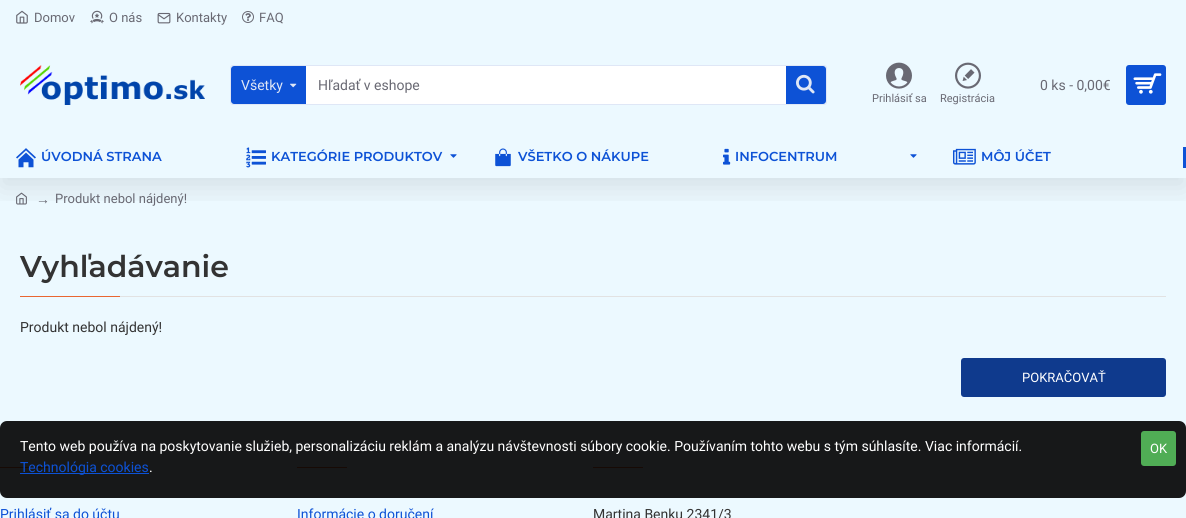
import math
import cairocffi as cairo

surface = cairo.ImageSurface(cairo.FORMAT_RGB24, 1186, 518)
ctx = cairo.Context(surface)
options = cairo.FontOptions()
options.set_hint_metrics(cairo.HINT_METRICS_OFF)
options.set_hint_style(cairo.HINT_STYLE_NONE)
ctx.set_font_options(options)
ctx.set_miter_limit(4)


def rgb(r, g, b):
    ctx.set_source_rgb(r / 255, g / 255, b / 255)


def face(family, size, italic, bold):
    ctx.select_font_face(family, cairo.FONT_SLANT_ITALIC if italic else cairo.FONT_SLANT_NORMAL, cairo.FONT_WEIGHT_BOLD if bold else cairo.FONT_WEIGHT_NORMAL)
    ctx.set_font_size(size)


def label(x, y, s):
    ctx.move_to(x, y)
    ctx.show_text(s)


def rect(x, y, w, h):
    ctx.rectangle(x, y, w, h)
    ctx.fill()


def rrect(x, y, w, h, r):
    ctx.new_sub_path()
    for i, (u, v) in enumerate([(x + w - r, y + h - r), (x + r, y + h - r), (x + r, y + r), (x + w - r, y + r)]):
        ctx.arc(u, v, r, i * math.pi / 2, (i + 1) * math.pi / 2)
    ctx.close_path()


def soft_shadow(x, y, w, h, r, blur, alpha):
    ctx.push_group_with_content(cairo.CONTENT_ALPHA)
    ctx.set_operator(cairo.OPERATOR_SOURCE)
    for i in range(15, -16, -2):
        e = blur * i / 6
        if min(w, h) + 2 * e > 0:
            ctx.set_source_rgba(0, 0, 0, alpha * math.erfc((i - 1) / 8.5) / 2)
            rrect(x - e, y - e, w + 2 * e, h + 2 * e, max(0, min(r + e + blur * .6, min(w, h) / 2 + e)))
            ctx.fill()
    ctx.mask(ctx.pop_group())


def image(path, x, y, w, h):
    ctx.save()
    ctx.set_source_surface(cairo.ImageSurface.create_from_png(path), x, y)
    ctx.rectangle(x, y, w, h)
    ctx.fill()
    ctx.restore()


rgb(236, 249, 255)
ctx.paint()
image('image16.png', 16, 192, 11, 13)
ctx.save()
ctx.rectangle(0, 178, 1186, 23)
ctx.clip()
rgb(0, 0, 0)
soft_shadow(0, 10, 1186, 178, 0, 15, 0.1)
ctx.restore()
image('image0.png', 16, 10, 12, 14)
face('Roboto', 13, 0, 0)
rgb(105, 105, 115)
label(34, 22, 'Domov')
image('image1.png', 90, 10, 14, 14)
label(109, 22, 'O nás')
image('image2.png', 157, 12, 14, 12)
label(176, 22, 'Kontakty')
image('image3.png', 242, 11, 12, 12)
label(259, 22, 'FAQ')
image('image4.png', 20, 65, 185, 40)
rrect(230.5, 65.5, 596, 39, 2.5)
rgb(223, 231, 246)
ctx.set_line_width(1)
ctx.stroke()
rgb(13, 82, 214)
ctx.new_path()
ctx.move_to(234, 66)
ctx.line_to(306, 66)
ctx.line_to(306, 104)
ctx.line_to(234, 104)
ctx.curve_to(232.5, 104, 231, 102.5, 231, 101)
ctx.line_to(231, 69)
ctx.curve_to(231, 67.5, 232.5, 66, 234, 66)
ctx.close_path()
ctx.fill()
face('Roboto', 14, 0, 0)
rgb(223, 231, 246)
label(241, 90, 'Všetky')
image('image5.png', 290, 83, 7, 5)
rgb(255, 255, 255)
rect(306, 66, 480, 38)
rgb(105, 105, 115)
label(318, 90, 'Hľadať v eshope')
rgb(13, 82, 214)
ctx.new_path()
ctx.move_to(786, 66)
ctx.line_to(823, 66)
ctx.curve_to(824.5, 66, 826, 67.5, 826, 69)
ctx.line_to(826, 101)
ctx.curve_to(826, 102.5, 824.5, 104, 823, 104)
ctx.line_to(786, 104)
ctx.close_path()
ctx.fill()
image('image6.png', 796, 74, 19, 20)
rgb(105, 105, 115)
label(1040, 90, '0 ks - 0,00€')
rgb(13, 82, 214)
rrect(1126, 65, 40, 40, 3)
ctx.fill()
image('image7.png', 1133, 73, 29, 21)
image('image8.png', 886, 62, 26, 27)
face('Roboto', 11, 0, 0)
rgb(105, 105, 115)
label(872, 102, 'Prihlásiť sa')
image('image9.png', 955, 62, 26, 27)
label(940, 102, 'Registrácia')
image('image10.png', 16, 148, 20, 20)
face('Montserrat SemiBold', 13, 0, 0)
rgb(13, 82, 214)
label(41, 161, 'ÚVODNÁ STRANA')
image('image11.png', 246, 147, 20, 21)
label(271, 161, 'KATEGÓRIE PRODUKTOV')
image('image12.png', 450, 154, 7, 4)
image('image13.png', 495, 148, 16, 19)
label(518, 161, 'VŠETKO O NÁKUPE')
image('image14.png', 723, 148, 8, 17)
label(735, 161, 'INFOCENTRUM')
image('image12.png', 910, 154, 7, 4)
image('image15.png', 953, 148, 23, 17)
label(981, 161, 'MÔJ ÚČET')
rect(1183, 147, 3, 21)
face('Liberation Serif', 14, 0, 0)
rgb(105, 105, 115)
label(36, 204, '→')
face('Roboto', 13, 0, 0)
label(55, 203, 'Produkt nebol nájdený!')
rgb(226, 226, 226)
rect(120, 296, 1046, 1)
face('Montserrat SemiBold', 30, 0, 0)
rgb(51, 51, 51)
label(20, 277, 'Vyhľadávanie')
rgb(233, 102, 49)
rect(20, 296, 100, 1)
face('Roboto', 14, 0, 0)
rgb(51, 51, 51)
label(20, 332, 'Produkt nebol nájdený!')
rgb(15, 58, 141)
rrect(961, 358, 205, 39, 3)
ctx.fill()
face('Roboto', 13, 0, 0)
rgb(255, 255, 255)
label(1022, 382, 'POKRAČOVAŤ')
rgb(233, 102, 49)
rect(0, 467, 50, 1)
face('Roboto', 14, 0, 0)
rgb(13, 82, 214)
label(0, 519, 'Prihlásiť sa do účtu')
rgb(233, 102, 49)
rect(297, 467, 50, 1)
rgb(13, 82, 214)
label(297, 519, 'Informácie o doručení')
rgb(233, 102, 49)
rect(593, 467, 50, 1)
rgb(51, 51, 51)
label(593, 519, 'Martina Benku 2341/3')
ctx.set_source_rgba(0, 0, 0, 0.9)
rrect(0, 421, 1186, 77, 7)
ctx.fill()
rgb(255, 255, 255)
label(20, 451, 'Tento web používa na poskytovanie služieb, personalizáciu reklám a analýzu návštevnosti súbory cookie. Používaním tohto webu s tým súhlasíte. Viac informácií.')
rgb(13, 82, 214)
rect(20, 473, 129, 1)
label(20, 472, 'Technológia cookies')
rgb(255, 255, 255)
label(149, 472, '.')
rgb(80, 173, 85)
rrect(1141, 431, 35, 35, 3)
ctx.fill()
face('Roboto', 13, 0, 0)
rgb(255, 255, 255)
label(1150, 453, 'OK')
surface.write_to_png('render.png')
